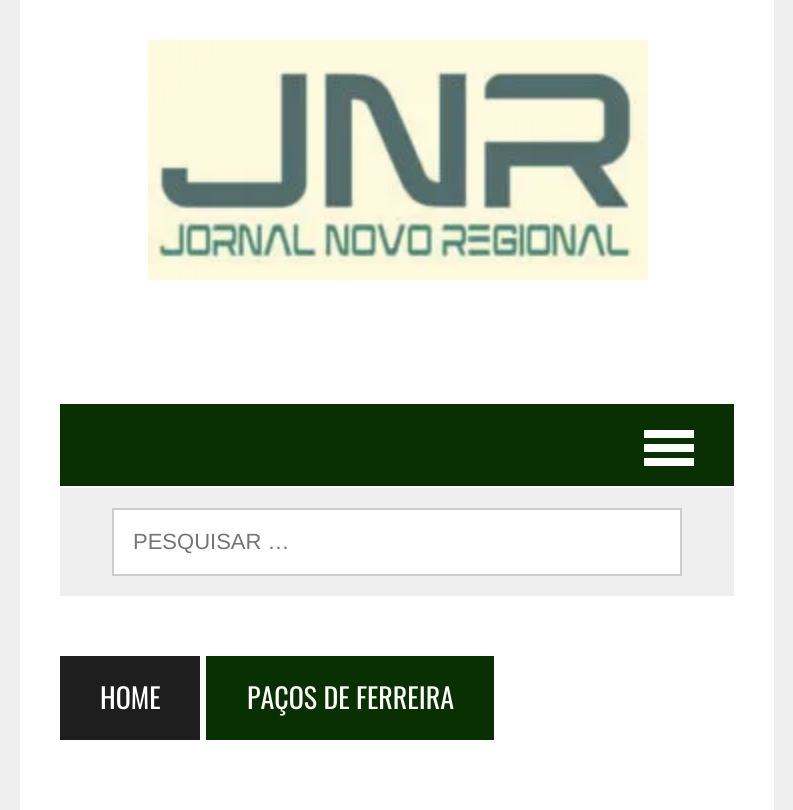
import math
import cairocffi as cairo

surface = cairo.ImageSurface(cairo.FORMAT_RGB24, 793, 810)
ctx = cairo.Context(surface)
options = cairo.FontOptions()
options.set_hint_metrics(cairo.HINT_METRICS_OFF)
options.set_hint_style(cairo.HINT_STYLE_NONE)
ctx.set_font_options(options)
ctx.set_miter_limit(4)


def rgb(r, g, b):
    ctx.set_source_rgb(r / 255, g / 255, b / 255)


def face(family, size, italic, bold):
    ctx.select_font_face(family, cairo.FONT_SLANT_ITALIC if italic else cairo.FONT_SLANT_NORMAL, cairo.FONT_WEIGHT_BOLD if bold else cairo.FONT_WEIGHT_NORMAL)
    ctx.set_font_size(size)


def label(x, y, s):
    ctx.move_to(x, y)
    ctx.show_text(s)


def rect(x, y, w, h):
    ctx.rectangle(x, y, w, h)
    ctx.fill()


def image(path, x, y, w, h):
    ctx.save()
    ctx.set_source_surface(cairo.ImageSurface.create_from_png(path), x, y)
    ctx.rectangle(x, y, w, h)
    ctx.fill()
    ctx.restore()


rgb(239, 239, 239)
ctx.paint()
rgb(255, 255, 255)
rect(20, 0, 754, 810)
image('image0.png', 148, 40, 500, 240)
rgb(8, 48, 0)
rect(60, 404, 674, 82)
rgb(255, 255, 255)
rect(644, 430, 50, 8)
rect(644, 444, 50, 8)
rect(644, 458, 50, 8)
rgb(239, 239, 239)
rect(60, 488, 674, 108)
rgb(255, 255, 255)
ctx.rectangle(113, 509, 568, 66)
ctx.fill_preserve()
rgb(205, 205, 205)
ctx.stroke()
face('Liberation Sans', 22, 0, 0)
rgb(117, 117, 117)
label(133, 549, 'PESQUISAR …')
rgb(31, 30, 30)
rect(60, 656, 140, 84)
face('Oswald', 28, 0, 0)
rgb(255, 255, 255)
label(100, 709, 'HOME')
rgb(8, 48, 0)
rect(206, 656, 288, 84)
rgb(255, 255, 255)
label(247, 709, 'PAÇOS DE FERREIRA')
surface.write_to_png('render.png')
